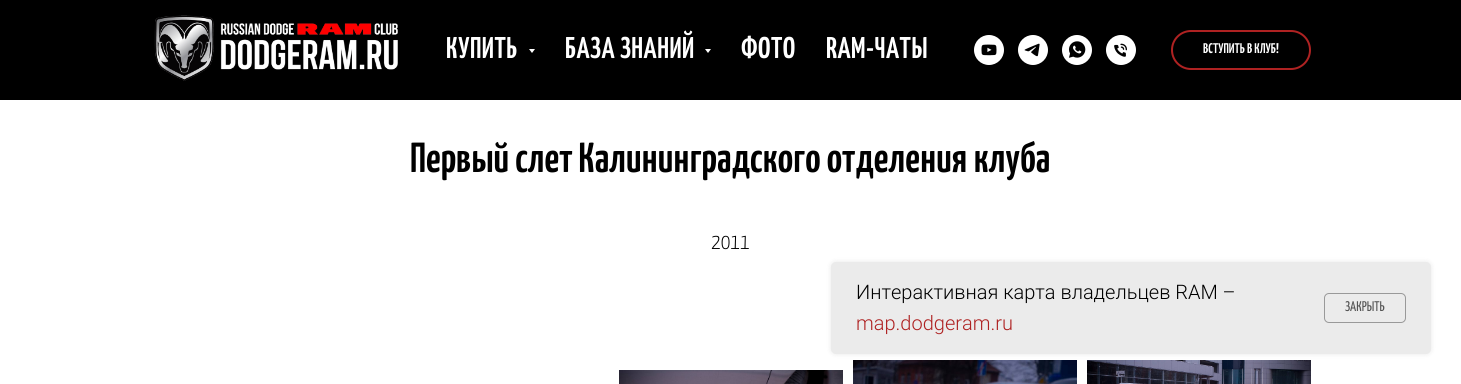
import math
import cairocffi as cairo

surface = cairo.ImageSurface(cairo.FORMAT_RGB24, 1461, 384)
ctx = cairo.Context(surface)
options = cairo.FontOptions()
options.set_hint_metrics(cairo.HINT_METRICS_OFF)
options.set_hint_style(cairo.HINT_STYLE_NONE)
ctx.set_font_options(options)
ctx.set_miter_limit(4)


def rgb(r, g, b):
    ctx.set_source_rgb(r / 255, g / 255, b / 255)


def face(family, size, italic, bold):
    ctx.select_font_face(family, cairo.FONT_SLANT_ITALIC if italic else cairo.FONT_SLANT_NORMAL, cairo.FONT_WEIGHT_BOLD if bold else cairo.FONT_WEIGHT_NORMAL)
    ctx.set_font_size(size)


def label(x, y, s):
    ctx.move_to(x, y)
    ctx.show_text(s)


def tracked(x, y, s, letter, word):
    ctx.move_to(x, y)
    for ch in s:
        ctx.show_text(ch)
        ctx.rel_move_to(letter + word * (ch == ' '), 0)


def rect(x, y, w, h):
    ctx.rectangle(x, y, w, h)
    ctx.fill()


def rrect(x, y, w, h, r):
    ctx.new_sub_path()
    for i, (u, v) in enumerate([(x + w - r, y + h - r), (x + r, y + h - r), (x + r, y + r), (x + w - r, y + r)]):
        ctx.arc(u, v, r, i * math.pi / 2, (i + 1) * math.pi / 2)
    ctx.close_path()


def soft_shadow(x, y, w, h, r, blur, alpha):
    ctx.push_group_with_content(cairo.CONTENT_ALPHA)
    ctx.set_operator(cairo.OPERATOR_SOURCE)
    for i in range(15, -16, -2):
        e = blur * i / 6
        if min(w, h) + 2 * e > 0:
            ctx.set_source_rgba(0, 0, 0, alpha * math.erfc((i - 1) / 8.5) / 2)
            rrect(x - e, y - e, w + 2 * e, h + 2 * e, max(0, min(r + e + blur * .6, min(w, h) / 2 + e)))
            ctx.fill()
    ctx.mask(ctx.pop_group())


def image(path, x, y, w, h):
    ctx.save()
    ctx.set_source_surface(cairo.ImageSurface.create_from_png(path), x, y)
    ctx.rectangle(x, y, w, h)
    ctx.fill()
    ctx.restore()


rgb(255, 255, 255)
ctx.paint()
rgb(0, 0, 0)
rect(0, 0, 1461, 100)
image('image0.png', 154, 15, 244, 66)
face('Yanone Kaffeesatz SemiBold', 30, 0, 0)
rgb(255, 255, 255)
tracked(446, 58, 'КУПИТЬ', 0.5, 0)
ctx.new_path()
ctx.move_to(529, 49)
ctx.line_to(535, 49)
ctx.line_to(532, 53)
ctx.close_path()
ctx.fill()
tracked(565, 58, 'БАЗА ЗНАНИЙ', 0.5, 0)
ctx.new_path()
ctx.move_to(705, 49)
ctx.line_to(711, 49)
ctx.line_to(708, 53)
ctx.close_path()
ctx.fill()
tracked(741, 58, 'ФОТО', 0.5, 0)
tracked(826, 58, 'RAM-ЧАТЫ', 0.5, 0)
image('image1.png', 974, 35, 30, 30)
image('image2.png', 1018, 35, 30, 30)
image('image3.png', 1062, 35, 30, 30)
image('image4.png', 1106, 35, 30, 30)
rrect(1172, 31, 138, 38, 19)
rgb(175, 34, 34)
ctx.stroke()
face('Yanone Kaffeesatz SemiBold', 14, 0, 0)
rgb(255, 255, 255)
label(1203, 53, 'ВСТУПИТЬ В КЛУБ!')
image('image6.png', 853, 360, 224, 24)
image('image7.png', 1087, 360, 224, 24)
rgb(0, 0, 0)
soft_shadow(831, 262, 600, 92, 5, 2.5, 0.1)
rgb(235, 235, 235)
rrect(831, 262, 600, 92, 5)
ctx.fill()
face('Roboto Light', 20, 0, 0)
rgb(0, 0, 0)
label(856, 299, 'Интерактивная карта владельцев RAM –')
rgb(175, 34, 34)
label(856, 330, 'map.dodgeram.ru')
rrect(1324.5, 293.5, 81, 29, 4.5)
rgb(153, 153, 153)
ctx.set_line_width(1)
ctx.stroke()
face('Yanone Kaffeesatz', 14, 0, 0)
rgb(85, 85, 85)
label(1345, 311, 'ЗАКРЫТЬ')
face('Yanone Kaffeesatz SemiBold', 42, 0, 0)
rgb(0, 0, 0)
label(410, 172, 'Первый слет Калининградского отделения клуба')
face('Yanone Kaffeesatz Light', 22, 0, 0)
label(711, 249, '2011')
image('image5.png', 619, 370, 224, 14)
surface.write_to_png('render.png')
